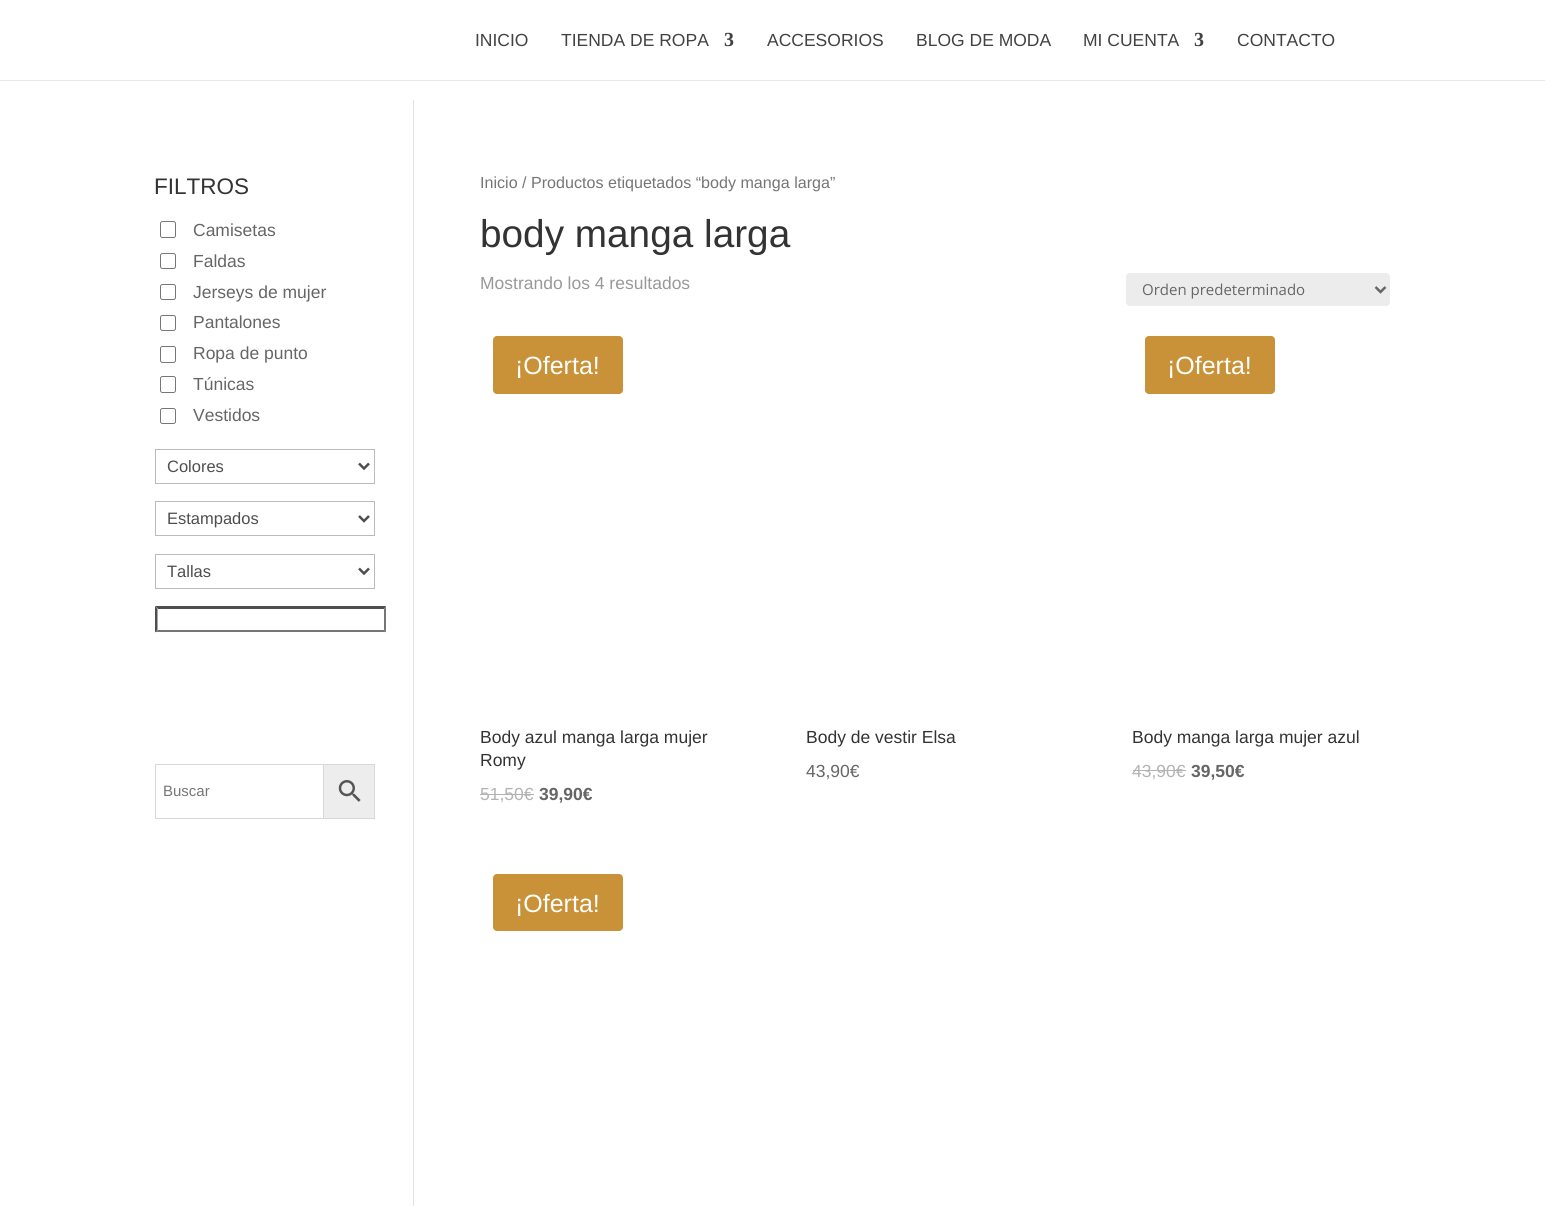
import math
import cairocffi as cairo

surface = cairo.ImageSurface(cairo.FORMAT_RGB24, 1545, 1206)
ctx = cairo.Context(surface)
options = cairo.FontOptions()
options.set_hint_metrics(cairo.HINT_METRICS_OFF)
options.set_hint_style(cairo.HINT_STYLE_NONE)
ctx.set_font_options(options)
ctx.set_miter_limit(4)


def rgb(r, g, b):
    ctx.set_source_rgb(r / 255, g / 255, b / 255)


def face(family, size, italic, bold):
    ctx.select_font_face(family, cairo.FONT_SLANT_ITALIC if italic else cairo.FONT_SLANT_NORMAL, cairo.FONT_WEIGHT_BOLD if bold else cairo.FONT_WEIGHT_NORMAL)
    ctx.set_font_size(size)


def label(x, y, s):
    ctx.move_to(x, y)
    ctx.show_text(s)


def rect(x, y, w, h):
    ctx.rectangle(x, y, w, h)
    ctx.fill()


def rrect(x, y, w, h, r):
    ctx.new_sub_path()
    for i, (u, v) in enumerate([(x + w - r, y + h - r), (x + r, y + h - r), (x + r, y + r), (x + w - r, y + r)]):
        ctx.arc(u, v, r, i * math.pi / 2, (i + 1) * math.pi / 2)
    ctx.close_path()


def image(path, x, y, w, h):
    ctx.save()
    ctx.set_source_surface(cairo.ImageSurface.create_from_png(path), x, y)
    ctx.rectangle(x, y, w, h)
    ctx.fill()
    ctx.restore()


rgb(255, 255, 255)
ctx.paint()
rgb(230, 230, 230)
rect(0, 80, 1545, 1)
face('Liberation Sans', 17.5, 0, 0)
rgb(66, 66, 66)
label(475, 46, 'INICIO')
label(561, 46, 'TIENDA DE ROPA')
face('Liberation Serif', 20, 0, 1)
label(724, 46, '3')
face('Liberation Sans', 17.5, 0, 0)
label(767, 46, 'ACCESORIOS')
label(916, 46, 'BLOG DE MODA')
label(1083, 46, 'MI CUENTA')
face('Liberation Serif', 20, 0, 1)
label(1194, 46, '3')
face('Liberation Sans', 17.5, 0, 0)
label(1237, 46, 'CONTACTO')
rgb(226, 226, 226)
rect(413, 100, 1, 1106)
face('Liberation Sans', 22.5, 0, 0)
rgb(51, 51, 51)
label(154, 194, 'FILTROS')
rrect(160.5, 221.5, 15, 16, 2)
rgb(118, 118, 118)
ctx.set_line_width(1)
ctx.stroke()
face('Liberation Sans', 17.5, 0, 0)
rgb(102, 102, 102)
label(193, 236, 'Camisetas')
rrect(160.5, 253.5, 15, 15, 2)
rgb(118, 118, 118)
ctx.stroke()
rgb(102, 102, 102)
label(193, 267, 'Faldas')
rrect(160.5, 284.5, 15, 15, 2)
rgb(118, 118, 118)
ctx.stroke()
rgb(102, 102, 102)
label(193, 298, 'Jerseys de mujer')
rrect(160.5, 315.5, 15, 15, 2)
rgb(118, 118, 118)
ctx.stroke()
rgb(102, 102, 102)
label(193, 328, 'Pantalones')
rrect(160.5, 346.5, 15, 16, 2)
rgb(118, 118, 118)
ctx.stroke()
rgb(102, 102, 102)
label(193, 359, 'Ropa de punto')
rrect(160.5, 376.5, 15, 16, 2)
rgb(118, 118, 118)
ctx.stroke()
rgb(102, 102, 102)
label(193, 390, 'Túnicas')
rrect(160.5, 408.5, 15, 15, 2)
rgb(118, 118, 118)
ctx.stroke()
rgb(102, 102, 102)
label(193, 421, 'Vestidos')
ctx.rectangle(155.5, 449.5, 219, 34)
rgb(187, 187, 187)
ctx.stroke()
ctx.new_path()
ctx.move_to(359, 463.5)
ctx.line_to(364, 468.5)
ctx.line_to(369, 463.5)
rgb(78, 78, 78)
ctx.set_line_width(2.5)
ctx.stroke()
face('Liberation Sans', 16.5, 0, 0)
label(167, 472, 'Colores')
ctx.rectangle(155.5, 501.5, 219, 34)
rgb(187, 187, 187)
ctx.set_line_width(1)
ctx.stroke()
ctx.new_path()
ctx.move_to(359, 516)
ctx.line_to(364, 521)
ctx.line_to(369, 516)
rgb(78, 78, 78)
ctx.set_line_width(2.5)
ctx.stroke()
label(167, 524, 'Estampados')
ctx.rectangle(155.5, 554.5, 219, 34)
rgb(187, 187, 187)
ctx.set_line_width(1)
ctx.stroke()
ctx.new_path()
ctx.move_to(359, 568.5)
ctx.line_to(364, 573.5)
ctx.line_to(369, 568.5)
rgb(78, 78, 78)
ctx.set_line_width(2.5)
ctx.stroke()
label(167, 577, 'Tallas')
rgb(79, 79, 79)
ctx.new_path()
ctx.move_to(155, 606)
ctx.line_to(386, 606)
ctx.line_to(384, 609)
ctx.line_to(158, 609)
ctx.close_path()
ctx.fill()
rgb(118, 118, 118)
ctx.new_path()
ctx.move_to(386, 606)
ctx.line_to(386, 632.5)
ctx.line_to(384, 630)
ctx.line_to(384, 609)
ctx.close_path()
ctx.fill()
ctx.new_path()
ctx.move_to(386, 632)
ctx.line_to(155, 632)
ctx.line_to(158, 630)
ctx.line_to(384, 630)
ctx.close_path()
ctx.fill()
rgb(79, 79, 79)
ctx.new_path()
ctx.move_to(155, 632.5)
ctx.line_to(155, 606)
ctx.line_to(157.5, 609)
ctx.line_to(157.5, 630)
ctx.close_path()
ctx.fill()
rgb(237, 237, 237)
ctx.rectangle(323.5, 764.5, 51, 54)
ctx.fill_preserve()
rgb(216, 216, 216)
ctx.set_line_width(1)
ctx.stroke()
ctx.rectangle(155.5, 764.5, 168, 54)
ctx.stroke()
face('Liberation Sans', 15, 0, 0)
rgb(118, 118, 118)
label(163, 796, 'Buscar')
image('image0.png', 338, 780, 23, 22)
face('Liberation Sans', 16.1, 0, 0)
label(480, 188, 'Inicio / Productos etiquetados “body manga larga”')
face('Liberation Sans', 38.75, 0, 0)
rgb(51, 51, 51)
label(480, 247, 'body manga larga')
face('Liberation Sans', 17.5, 0, 0)
rgb(153, 153, 153)
label(480, 289, 'Mostrando los 4 resultados')
rgb(236, 236, 236)
rrect(1126, 273, 264, 33, 4)
ctx.fill()
ctx.new_path()
ctx.move_to(1375.5, 287)
ctx.line_to(1380.5, 292)
ctx.line_to(1385.5, 287)
rgb(102, 102, 102)
ctx.set_line_width(2.5)
ctx.stroke()
face('Open Sans', 15, 0, 0)
label(1142, 295, 'Orden predeterminado')
rgb(201, 146, 56)
rrect(493, 336, 130, 58, 4)
ctx.fill()
face('Liberation Sans', 25, 0, 0)
rgb(255, 255, 255)
label(515, 374, '¡Oferta!')
face('Liberation Sans', 17.5, 0, 0)
rgb(51, 51, 51)
label(480, 743, 'Body azul manga larga mujer')
label(480, 766, 'Romy')
rgb(179, 179, 179)
label(480, 800, '51,50€')
rect(480, 794, 54, 1)
face('Liberation Sans', 17.5, 0, 1)
rgb(102, 102, 102)
label(539, 800, '39,90€')
face('Liberation Sans', 17.5, 0, 0)
rgb(51, 51, 51)
label(806, 743, 'Body de vestir Elsa')
rgb(102, 102, 102)
label(806, 777, '43,90€')
rgb(201, 146, 56)
rrect(1145, 336, 130, 58, 4)
ctx.fill()
face('Liberation Sans', 25, 0, 0)
rgb(255, 255, 255)
label(1167, 374, '¡Oferta!')
face('Liberation Sans', 17.5, 0, 0)
rgb(51, 51, 51)
label(1132, 743, 'Body manga larga mujer azul')
rgb(179, 179, 179)
label(1132, 777, '43,90€')
rect(1133, 770, 53, 1)
face('Liberation Sans', 17.5, 0, 1)
rgb(102, 102, 102)
label(1191, 777, '39,50€')
rgb(201, 146, 56)
rrect(493, 874, 130, 57, 4)
ctx.fill()
face('Liberation Sans', 25, 0, 0)
rgb(255, 255, 255)
label(515, 912, '¡Oferta!')
surface.write_to_png('render.png')
